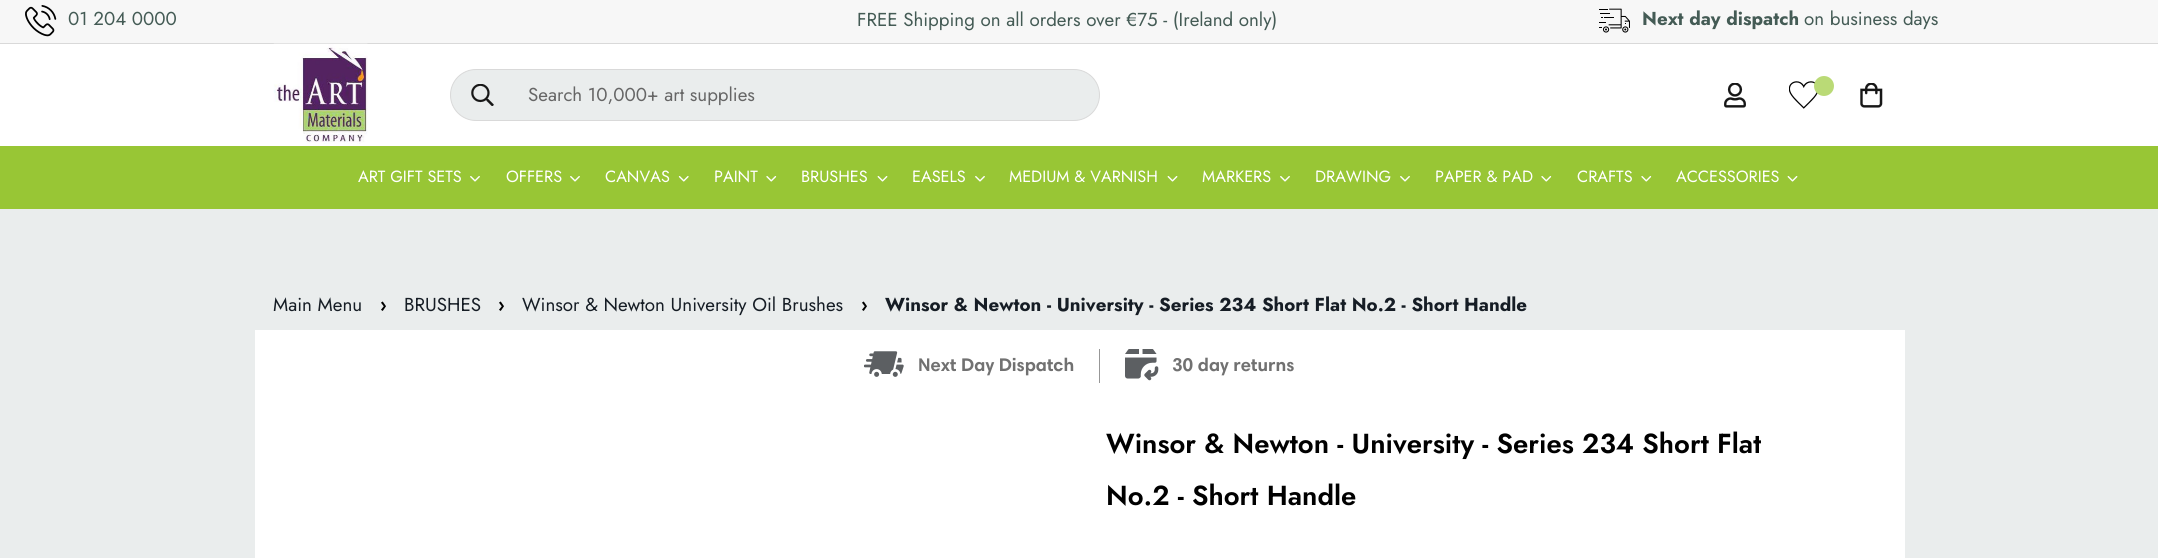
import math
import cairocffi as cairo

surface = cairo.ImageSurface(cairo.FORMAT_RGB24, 2158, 558)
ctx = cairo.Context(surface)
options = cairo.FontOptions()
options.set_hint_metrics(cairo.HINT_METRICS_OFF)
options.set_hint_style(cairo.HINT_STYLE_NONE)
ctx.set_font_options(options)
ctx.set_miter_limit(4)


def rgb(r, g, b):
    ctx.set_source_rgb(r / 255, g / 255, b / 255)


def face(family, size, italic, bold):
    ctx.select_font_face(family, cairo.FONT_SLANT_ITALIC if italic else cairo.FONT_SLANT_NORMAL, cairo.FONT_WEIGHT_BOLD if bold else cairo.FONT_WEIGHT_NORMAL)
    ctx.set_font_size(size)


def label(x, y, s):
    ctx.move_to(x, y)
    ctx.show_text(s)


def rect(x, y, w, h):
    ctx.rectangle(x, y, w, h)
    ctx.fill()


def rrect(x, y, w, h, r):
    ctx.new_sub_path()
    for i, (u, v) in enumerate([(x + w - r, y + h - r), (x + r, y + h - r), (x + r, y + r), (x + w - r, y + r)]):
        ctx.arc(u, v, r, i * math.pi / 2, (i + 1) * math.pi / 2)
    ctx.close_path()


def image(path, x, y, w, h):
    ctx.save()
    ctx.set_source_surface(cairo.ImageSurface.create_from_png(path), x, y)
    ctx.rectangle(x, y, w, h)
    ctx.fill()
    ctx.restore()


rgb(234, 237, 237)
ctx.paint()
rgb(247, 247, 247)
rect(0, 0, 2158, 43)
rgb(217, 217, 217)
rect(0, 43, 2158, 1)
image('image0.png', 25, 5, 32, 32)
face('Jost', 18.75, 0, 0)
rgb(68, 91, 85)
label(68, 25, '01 204 0000')
label(857, 26, 'FREE Shipping on all orders over €75 - (Ireland only)')
image('image1.png', 1599, 8, 31, 25)
face('Jost', 18.75, 0, 1)
label(1642, 25, 'Next day dispatch')
face('Jost', 18.75, 0, 0)
label(1804, 25, 'on business days')
rgb(255, 255, 255)
rect(0, 44, 2158, 102)
image('image2.png', 273, 43, 95, 101)
rgb(234, 237, 237)
rrect(450.5, 69.5, 649, 51, 25.5)
ctx.fill_preserve()
rgb(217, 217, 217)
ctx.set_line_width(1)
ctx.stroke()
image('image3.png', 471, 84, 23, 22)
rgb(102, 102, 102)
label(528, 101, 'Search 10,000+ art supplies')
image('image4.png', 1724, 83, 22, 25)
image('image5.png', 1789, 81, 29, 28)
rgb(186, 218, 118)
ctx.arc(1824, 86, 10, 0, 2 * math.pi)
ctx.fill()
image('image6.png', 1860, 83, 23, 25)
rgb(152, 198, 53)
rect(0, 146, 2158, 63)
face('Jost', 16.25, 0, 0)
rgb(255, 255, 255)
label(358, 182, 'ART GIFT SETS')
image('image7.png', 470, 176, 10, 6)
label(506, 182, 'OFFERS')
image('image7.png', 570, 176, 10, 6)
label(605, 182, 'CANVAS')
image('image8.png', 678, 176, 11, 6)
label(714, 182, 'PAINT')
image('image9.png', 766, 176, 11, 6)
label(801, 182, 'BRUSHES')
image('image10.png', 877, 176, 11, 6)
label(912, 182, 'EASELS')
image('image7.png', 975, 176, 10, 6)
label(1009, 182, 'MEDIUM & VARNISH')
image('image10.png', 1167, 176, 11, 6)
label(1202, 182, 'MARKERS')
image('image7.png', 1280, 176, 10, 6)
label(1315, 182, 'DRAWING')
image('image7.png', 1400, 176, 10, 6)
label(1435, 182, 'PAPER & PAD')
image('image9.png', 1541, 176, 11, 6)
label(1577, 182, 'CRAFTS')
image('image9.png', 1641, 176, 11, 6)
label(1676, 182, 'ACCESSORIES')
image('image10.png', 1787, 176, 11, 6)
face('Jost', 18.75, 0, 0)
rgb(22, 29, 37)
label(273, 311, 'Main Menu')
face('Jost', 18.75, 0, 1)
rgb(0, 0, 0)
label(380, 311, '›')
face('Jost', 18.75, 0, 0)
rgb(22, 29, 37)
label(404, 311, 'BRUSHES')
face('Jost', 18.75, 0, 1)
rgb(0, 0, 0)
label(498, 311, '›')
face('Jost', 18.75, 0, 0)
rgb(22, 29, 37)
label(522, 311, 'Winsor & Newton University Oil Brushes')
face('Jost', 18.75, 0, 1)
rgb(0, 0, 0)
label(861, 311, '›')
rgb(22, 29, 37)
label(885, 311, 'Winsor & Newton - University - Series 234 Short Flat No.2 - Short Handle')
rgb(255, 255, 255)
rect(255, 330, 1650, 228)
image('image11.png', 864, 351, 40, 26)
face('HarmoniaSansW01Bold', 18.5, 0, 1)
rgb(113, 113, 113)
label(918, 371, 'Next Day Dispatch')
rgb(151, 151, 151)
rect(1099, 349, 1, 34)
image('image12.png', 1125, 349, 34, 32)
rgb(113, 113, 113)
label(1172, 371, '30 day returns')
face('Jost SemiBold', 27.5, 0, 0)
rgb(0, 0, 0)
label(1106, 453, 'Winsor & Newton - University - Series 234 Short Flat')
label(1106, 505, 'No.2 - Short Handle')
surface.write_to_png('render.png')
